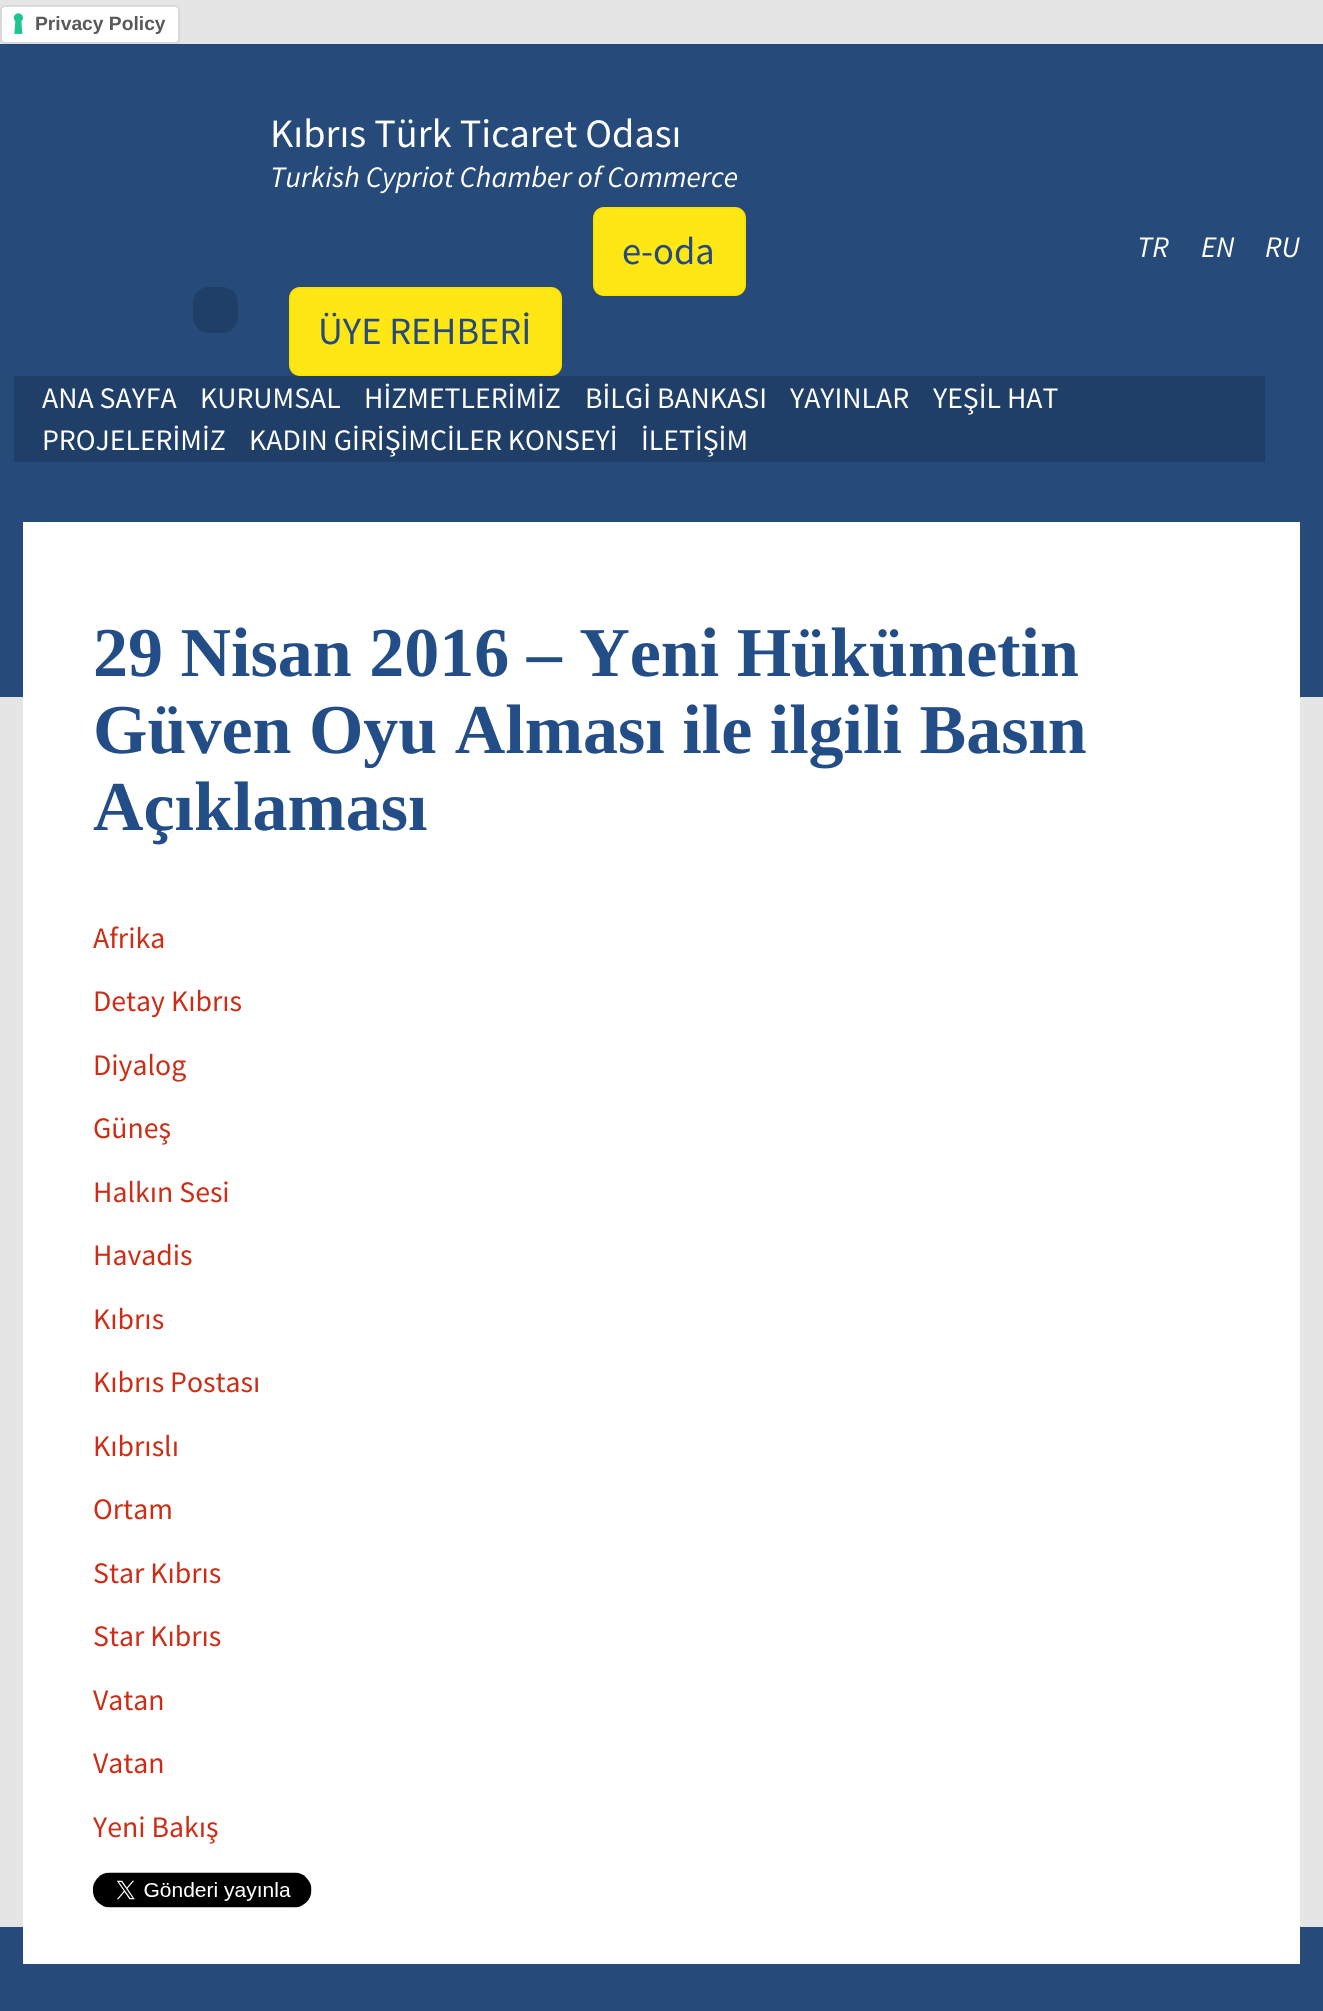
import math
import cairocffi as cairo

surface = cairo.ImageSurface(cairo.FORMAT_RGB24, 1323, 2011)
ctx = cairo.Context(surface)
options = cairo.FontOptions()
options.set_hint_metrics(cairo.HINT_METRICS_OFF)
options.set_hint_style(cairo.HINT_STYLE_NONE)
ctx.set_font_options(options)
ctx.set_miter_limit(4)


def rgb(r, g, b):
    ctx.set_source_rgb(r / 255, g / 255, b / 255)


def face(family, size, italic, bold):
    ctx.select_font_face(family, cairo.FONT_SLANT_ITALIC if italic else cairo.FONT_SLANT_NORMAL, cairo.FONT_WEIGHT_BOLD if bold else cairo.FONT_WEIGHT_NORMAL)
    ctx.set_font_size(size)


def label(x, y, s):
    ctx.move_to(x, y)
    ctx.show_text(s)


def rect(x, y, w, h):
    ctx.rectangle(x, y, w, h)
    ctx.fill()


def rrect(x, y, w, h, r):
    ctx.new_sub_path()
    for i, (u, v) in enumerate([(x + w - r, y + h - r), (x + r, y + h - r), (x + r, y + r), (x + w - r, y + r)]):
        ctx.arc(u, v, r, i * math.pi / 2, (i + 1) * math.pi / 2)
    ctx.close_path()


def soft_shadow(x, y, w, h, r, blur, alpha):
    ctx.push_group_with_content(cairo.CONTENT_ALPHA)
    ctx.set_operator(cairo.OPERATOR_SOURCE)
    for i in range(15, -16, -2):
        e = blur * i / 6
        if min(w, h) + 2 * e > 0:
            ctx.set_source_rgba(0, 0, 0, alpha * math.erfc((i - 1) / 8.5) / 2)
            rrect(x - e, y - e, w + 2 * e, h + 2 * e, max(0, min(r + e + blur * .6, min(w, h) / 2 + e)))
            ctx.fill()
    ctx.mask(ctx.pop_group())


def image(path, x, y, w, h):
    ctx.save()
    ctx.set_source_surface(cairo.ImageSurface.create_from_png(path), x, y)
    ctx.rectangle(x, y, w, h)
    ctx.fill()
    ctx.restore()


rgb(229, 229, 229)
ctx.paint()
rgb(38, 74, 122)
rect(0, 44, 1323, 653)
rgb(0, 0, 0)
soft_shadow(2, 9, 177, 35, 4, 1, 0.15)
rgb(255, 255, 255)
rrect(0, 5, 180, 39, 5)
ctx.fill()
image('image0.png', 13, 13, 10, 21)
rrect(1, 6, 178, 37, 4)
ctx.set_source_rgba(0, 0, 0, 0.15)
ctx.stroke()
face('Liberation Sans', 19.25, 0, 1)
rgb(89, 89, 89)
label(35, 30, 'Privacy Policy')
face('Source Sans Pro', 40.25, 0, 0)
rgb(255, 255, 255)
label(270, 147, 'Kıbrıs Türk Ticaret Odası')
face('Source Sans Pro', 29.75, 1, 0)
label(270, 187, 'Turkish Cypriot Chamber of Commerce')
rgb(255, 231, 22)
rrect(594, 208, 151, 87, 10)
ctx.fill_preserve()
rgb(251, 226, 0)
ctx.stroke()
face('Source Sans Pro', 38.5, 0, 0)
rgb(38, 74, 122)
label(622, 264, 'e-oda')
face('Source Sans Pro', 29.75, 1, 0)
rgb(255, 255, 255)
label(1137, 257, 'TR')
label(1201, 257, 'EN')
label(1265, 257, 'RU')
rgb(32, 63, 104)
rrect(193, 287, 45, 46, 16)
ctx.fill()
rgb(255, 231, 22)
rrect(290, 288, 271, 87, 10)
ctx.fill_preserve()
rgb(251, 226, 0)
ctx.stroke()
face('Source Sans Pro', 38.5, 0, 0)
rgb(38, 74, 122)
label(318, 344, 'ÜYE REHBERİ')
rgb(32, 63, 104)
rect(14, 376, 1251, 86)
face('Source Sans Pro', 29.75, 0, 0)
rgb(255, 255, 255)
label(42, 408, 'ANA SAYFA')
label(200, 408, 'KURUMSAL')
label(364, 408, 'HİZMETLERİMİZ')
label(585, 408, 'BİLGİ BANKASI')
label(790, 408, 'YAYINLAR')
label(933, 408, 'YEŞİL HAT')
label(42, 450, 'PROJELERİMİZ')
label(249, 450, 'KADIN GİRİŞİMCİLER KONSEYİ')
label(641, 450, 'İLETİŞİM')
rgb(38, 74, 122)
rect(0, 1927, 1323, 84)
rgb(255, 255, 255)
rect(23, 522, 1277, 1442)
face('Liberation Serif', 70, 0, 1)
rgb(34, 77, 135)
label(93, 676, '29 Nisan 2016 – Yeni Hükümetin')
label(93, 753, 'Güven Oyu Alması ile ilgili Basın')
label(93, 830, 'Açıklaması')
face('Source Sans Pro', 29.75, 0, 0)
rgb(204, 45, 20)
label(93, 948, 'Afrika')
label(93, 1011, 'Detay Kıbrıs')
label(93, 1075, 'Diyalog')
label(93, 1138, 'Güneş')
label(93, 1202, 'Halkın Sesi')
label(93, 1265, 'Havadis')
label(93, 1329, 'Kıbrıs')
label(93, 1392, 'Kıbrıs Postası')
label(93, 1456, 'Kıbrıslı')
label(93, 1519, 'Ortam')
label(93, 1583, 'Star Kıbrıs')
label(93, 1646, 'Star Kıbrıs')
label(93, 1710, 'Vatan')
label(93, 1773, 'Vatan')
label(93, 1837, 'Yeni Bakış')
image('image1.png', 92, 1872, 220, 36)
surface.write_to_png('render.png')
